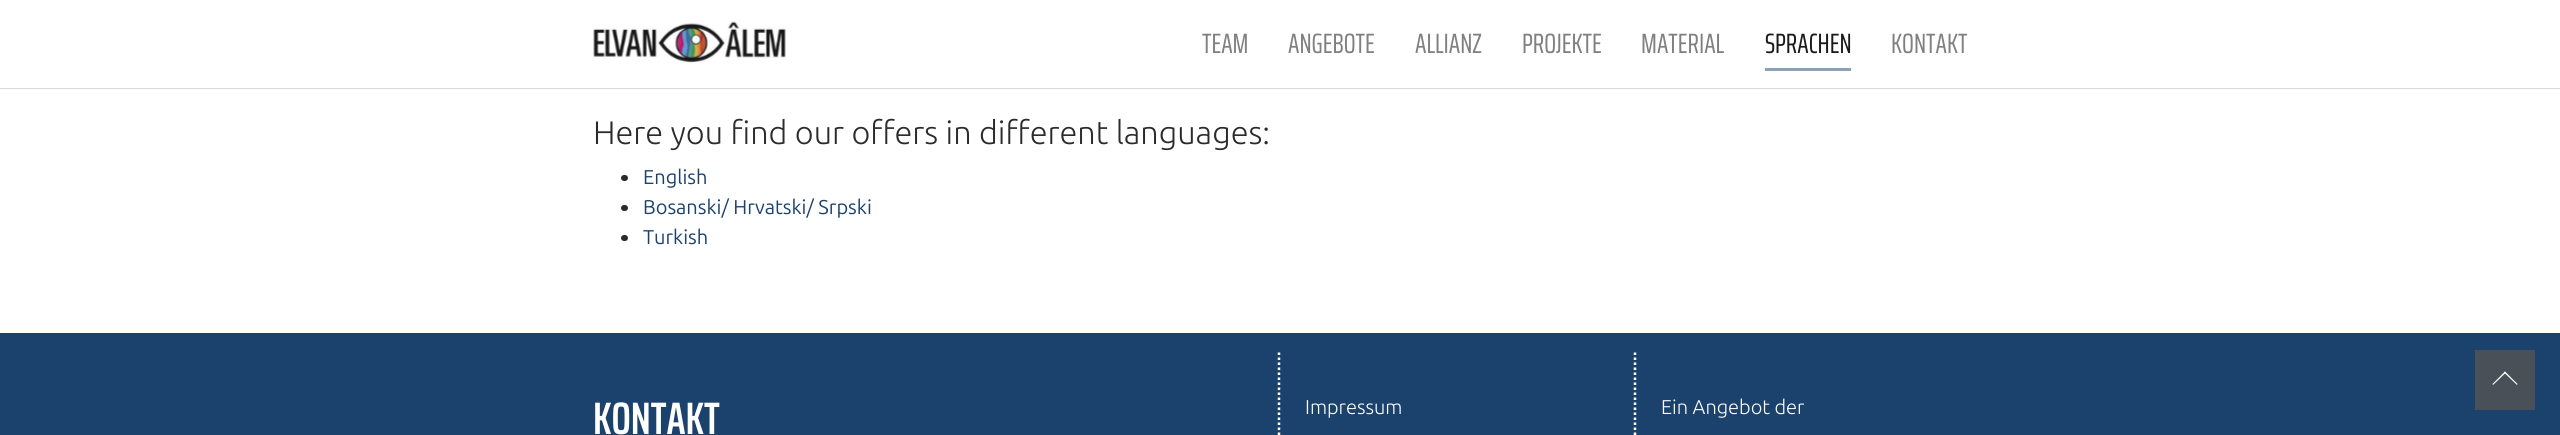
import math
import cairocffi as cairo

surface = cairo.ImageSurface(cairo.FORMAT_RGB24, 2560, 435)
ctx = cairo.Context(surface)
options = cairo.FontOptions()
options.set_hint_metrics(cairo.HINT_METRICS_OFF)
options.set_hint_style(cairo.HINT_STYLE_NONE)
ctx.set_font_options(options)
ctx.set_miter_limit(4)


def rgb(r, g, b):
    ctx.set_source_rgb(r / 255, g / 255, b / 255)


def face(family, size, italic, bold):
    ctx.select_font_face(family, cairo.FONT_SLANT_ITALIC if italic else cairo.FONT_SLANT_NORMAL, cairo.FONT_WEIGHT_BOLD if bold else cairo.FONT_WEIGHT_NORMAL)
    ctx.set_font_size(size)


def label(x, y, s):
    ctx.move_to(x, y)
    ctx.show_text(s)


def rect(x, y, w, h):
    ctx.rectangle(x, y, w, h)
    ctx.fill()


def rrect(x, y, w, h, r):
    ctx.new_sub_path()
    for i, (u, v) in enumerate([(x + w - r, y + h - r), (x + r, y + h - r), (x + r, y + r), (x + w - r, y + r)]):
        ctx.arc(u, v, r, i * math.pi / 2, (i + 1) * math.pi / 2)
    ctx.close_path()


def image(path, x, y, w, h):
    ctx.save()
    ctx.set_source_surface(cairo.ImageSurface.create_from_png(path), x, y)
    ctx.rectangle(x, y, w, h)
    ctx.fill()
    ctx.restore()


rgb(255, 255, 255)
ctx.paint()
rgb(217, 217, 217)
rect(0, 88, 2560, 1)
image('image0.png', 593, 21, 193, 42)
face('Saira ExtraCondensed', 28, 0, 0)
rgb(128, 128, 128)
label(1202, 53, 'TEAM')
label(1288, 53, 'ANGEBOTE')
label(1415, 53, 'ALLIANZ')
label(1522, 53, 'PROJEKTE')
label(1641, 53, 'MATERIAL')
rgb(26, 26, 26)
label(1765, 53, 'SPRACHEN')
rgb(141, 161, 182)
rect(1765, 68, 86, 3)
rgb(128, 128, 128)
label(1891, 53, 'KONTAKT')
face('Ubuntu Light', 32.5, 0, 0)
rgb(43, 43, 43)
label(593, 144, 'Here you find our offers in different languages:')
rrect(621, 175, 7, 6, 3)
ctx.fill()
face('Ubuntu', 20, 0, 0)
rgb(27, 66, 109)
label(643, 184, 'English')
rgb(43, 43, 43)
rrect(621, 205, 7, 6, 3)
ctx.fill()
rgb(27, 66, 109)
label(643, 214, 'Bosanski/ Hrvatski/ Srpski')
rgb(43, 43, 43)
rrect(621, 235, 7, 6, 3)
ctx.fill()
rgb(27, 66, 109)
label(643, 244, 'Turkish')
rect(0, 333, 2560, 102)
rgb(73, 80, 87)
rect(2475, 350, 60, 60)
rgb(255, 255, 255)
ctx.new_path()
ctx.move_to(2505, 371.5)
ctx.line_to(2517.5, 384)
ctx.line_to(2517, 385)
ctx.line_to(2504, 372.5)
ctx.close_path()
ctx.fill()
ctx.new_path()
ctx.move_to(2505, 371.5)
ctx.line_to(2506, 372.5)
ctx.line_to(2493, 385)
ctx.line_to(2492.5, 384)
ctx.close_path()
ctx.fill()
ctx.new_path()
ctx.move_to(1279, 352.5)
ctx.line_to(1279, 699)
ctx.set_line_width(2.5)
ctx.set_dash([2.5, 2.5])
ctx.stroke()
face('Saira ExtraCondensed SemiBold', 45.5, 0, 0)
label(593, 434, 'KONTAKT')
ctx.new_path()
ctx.move_to(1635, 352.5)
ctx.line_to(1635, 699)
ctx.stroke()
face('Ubuntu Light', 20, 0, 0)
label(1305, 414, 'Impressum')
label(1661, 414, 'Ein Angebot der')
surface.write_to_png('render.png')
